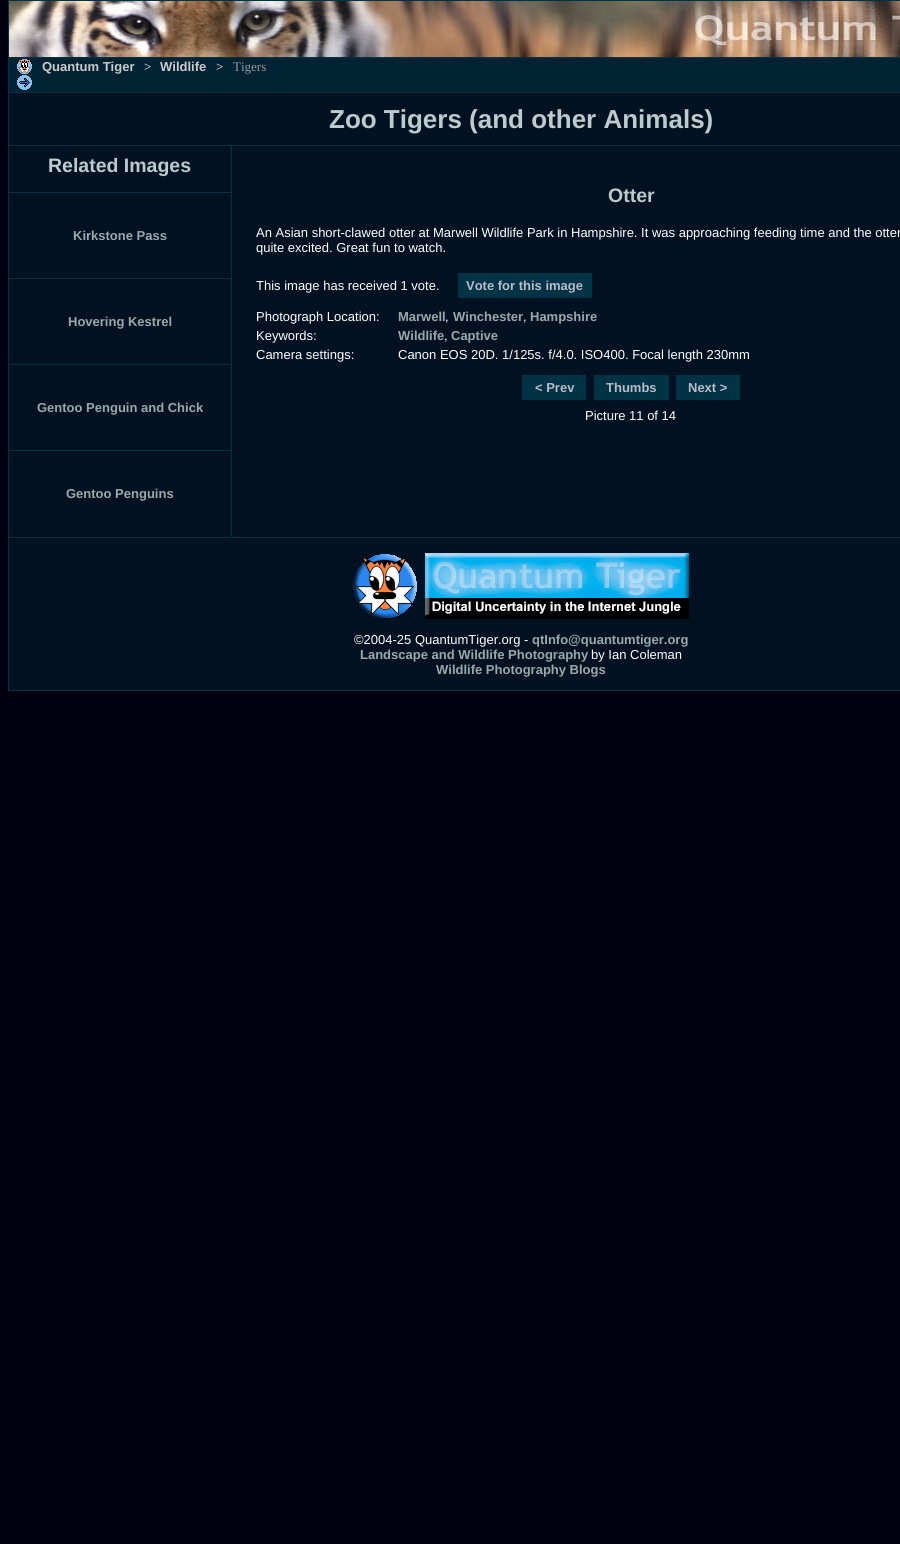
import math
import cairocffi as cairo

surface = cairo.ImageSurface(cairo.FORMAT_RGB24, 900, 1544)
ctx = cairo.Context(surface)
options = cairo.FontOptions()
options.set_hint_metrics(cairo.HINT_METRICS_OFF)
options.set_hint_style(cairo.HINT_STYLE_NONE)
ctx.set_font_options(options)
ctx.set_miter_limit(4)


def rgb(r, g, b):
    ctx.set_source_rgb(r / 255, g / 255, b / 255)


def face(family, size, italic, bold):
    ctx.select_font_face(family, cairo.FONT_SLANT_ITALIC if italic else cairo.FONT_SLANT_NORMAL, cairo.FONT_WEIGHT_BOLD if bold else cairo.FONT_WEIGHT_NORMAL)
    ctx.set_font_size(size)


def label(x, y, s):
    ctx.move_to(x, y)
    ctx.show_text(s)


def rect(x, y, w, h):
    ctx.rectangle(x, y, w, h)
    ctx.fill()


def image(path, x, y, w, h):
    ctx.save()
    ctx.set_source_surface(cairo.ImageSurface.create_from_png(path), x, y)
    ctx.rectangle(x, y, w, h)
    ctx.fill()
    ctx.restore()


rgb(0, 0, 17)
ctx.paint()
rgb(0, 17, 34)
rect(9, 93, 891, 597)
ctx.rectangle(8.5, 0.5, 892, 690)
rgb(0, 51, 68)
ctx.set_line_width(1)
ctx.stroke()
image('image0.png', 9, 1, 891, 56)
rgb(0, 34, 51)
rect(9, 58, 891, 34)
rgb(0, 51, 68)
rect(9, 57, 891, 1)
rect(9, 92, 891, 1)
image('image1.png', 17, 59, 15, 15)
face('Liberation Sans', 13, 0, 1)
rgb(204, 204, 204)
label(42, 71, 'Quantum Tiger')
face('Liberation Serif', 13, 0, 0)
rgb(255, 255, 255)
label(144, 71, '>')
face('Liberation Sans', 13, 0, 1)
rgb(204, 204, 204)
label(160, 71, 'Wildlife')
face('Liberation Serif', 13, 0, 0)
rgb(255, 255, 255)
label(216, 71, '>')
rgb(153, 153, 153)
label(233, 71, 'Tigers')
image('image2.png', 17, 75, 15, 15)
face('Liberation Sans', 26, 0, 1)
rgb(187, 204, 204)
label(329, 128, 'Zoo Tigers (and other Animals)')
rgb(0, 51, 68)
rect(231, 145, 1, 392)
rect(9, 145, 891, 1)
face('Liberation Sans', 19.5, 0, 1)
rgb(187, 204, 204)
label(48, 172, 'Related Images')
rgb(0, 51, 68)
rect(9, 192, 222, 1)
face('Liberation Sans', 13, 0, 1)
rgb(153, 170, 170)
label(73, 240, 'Kirkstone Pass')
rgb(0, 51, 68)
rect(9, 278, 222, 1)
rgb(153, 170, 170)
label(68, 326, 'Hovering Kestrel')
rgb(0, 51, 68)
rect(9, 364, 222, 1)
rgb(153, 170, 170)
label(37, 412, 'Gentoo Penguin and Chick')
rgb(0, 51, 68)
rect(9, 450, 222, 1)
rgb(153, 170, 170)
label(66, 498, 'Gentoo Penguins')
face('Liberation Sans', 19.5, 0, 1)
rgb(187, 204, 204)
label(608, 202, 'Otter')
face('Liberation Sans', 13, 0, 0)
rgb(255, 255, 255)
label(256, 237, 'An Asian short-clawed otter at Marwell Wildlife Park in Hampshire. It was approaching feeding time and the otter')
label(256, 252, 'quite excited. Great fun to watch.')
label(256, 290, 'This image has received 1 vote.')
rgb(0, 51, 68)
rect(458, 273, 134, 25)
face('Liberation Sans', 13, 0, 1)
rgb(187, 187, 204)
label(466, 290, 'Vote for this image')
face('Liberation Sans', 13, 0, 0)
rgb(255, 255, 255)
label(256, 321, 'Photograph Location:')
face('Liberation Sans', 13, 0, 1)
rgb(153, 170, 170)
label(398, 321, 'Marwell')
face('Liberation Sans', 13, 0, 0)
rgb(255, 255, 255)
label(445, 321, ',')
face('Liberation Sans', 13, 0, 1)
rgb(153, 170, 170)
label(453, 321, 'Winchester')
face('Liberation Sans', 13, 0, 0)
rgb(255, 255, 255)
label(523, 321, ',')
face('Liberation Sans', 13, 0, 1)
rgb(153, 170, 170)
label(530, 321, 'Hampshire')
face('Liberation Sans', 13, 0, 0)
rgb(255, 255, 255)
label(256, 340, 'Keywords:')
face('Liberation Sans', 13, 0, 1)
rgb(153, 170, 170)
label(398, 340, 'Wildlife')
face('Liberation Sans', 13, 0, 0)
rgb(255, 255, 255)
label(444, 340, ',')
face('Liberation Sans', 13, 0, 1)
rgb(153, 170, 170)
label(451, 340, 'Captive')
face('Liberation Sans', 13, 0, 0)
rgb(255, 255, 255)
label(256, 359, 'Camera settings:')
label(398, 359, 'Canon EOS 20D. 1/125s. f/4.0. ISO400. Focal length 230mm')
rgb(0, 51, 68)
rect(522, 375, 64, 25)
face('Liberation Sans', 13, 0, 1)
rgb(187, 187, 204)
label(535, 392, '< Prev')
rgb(0, 51, 68)
rect(594, 375, 75, 25)
rgb(187, 187, 204)
label(606, 392, 'Thumbs')
rgb(0, 51, 68)
rect(676, 375, 64, 25)
rgb(187, 187, 204)
label(688, 392, 'Next >')
face('Liberation Sans', 13, 0, 0)
rgb(255, 255, 255)
label(585, 420, 'Picture 11 of 14')
rgb(0, 51, 68)
rect(9, 537, 891, 1)
image('image3.png', 353, 554, 64, 64)
image('image4.png', 425, 553, 264, 66)
rgb(255, 255, 255)
label(354, 644, '©2004-25 QuantumTiger.org -')
face('Liberation Sans', 13, 0, 1)
rgb(153, 170, 170)
label(532, 644, 'qtInfo@quantumtiger.org')
label(360, 659, 'Landscape and Wildlife Photography')
face('Liberation Sans', 13, 0, 0)
rgb(255, 255, 255)
label(591, 659, 'by Ian Coleman')
face('Liberation Sans', 13, 0, 1)
rgb(153, 170, 170)
label(436, 674, 'Wildlife Photography Blogs')
surface.write_to_png('render.png')
